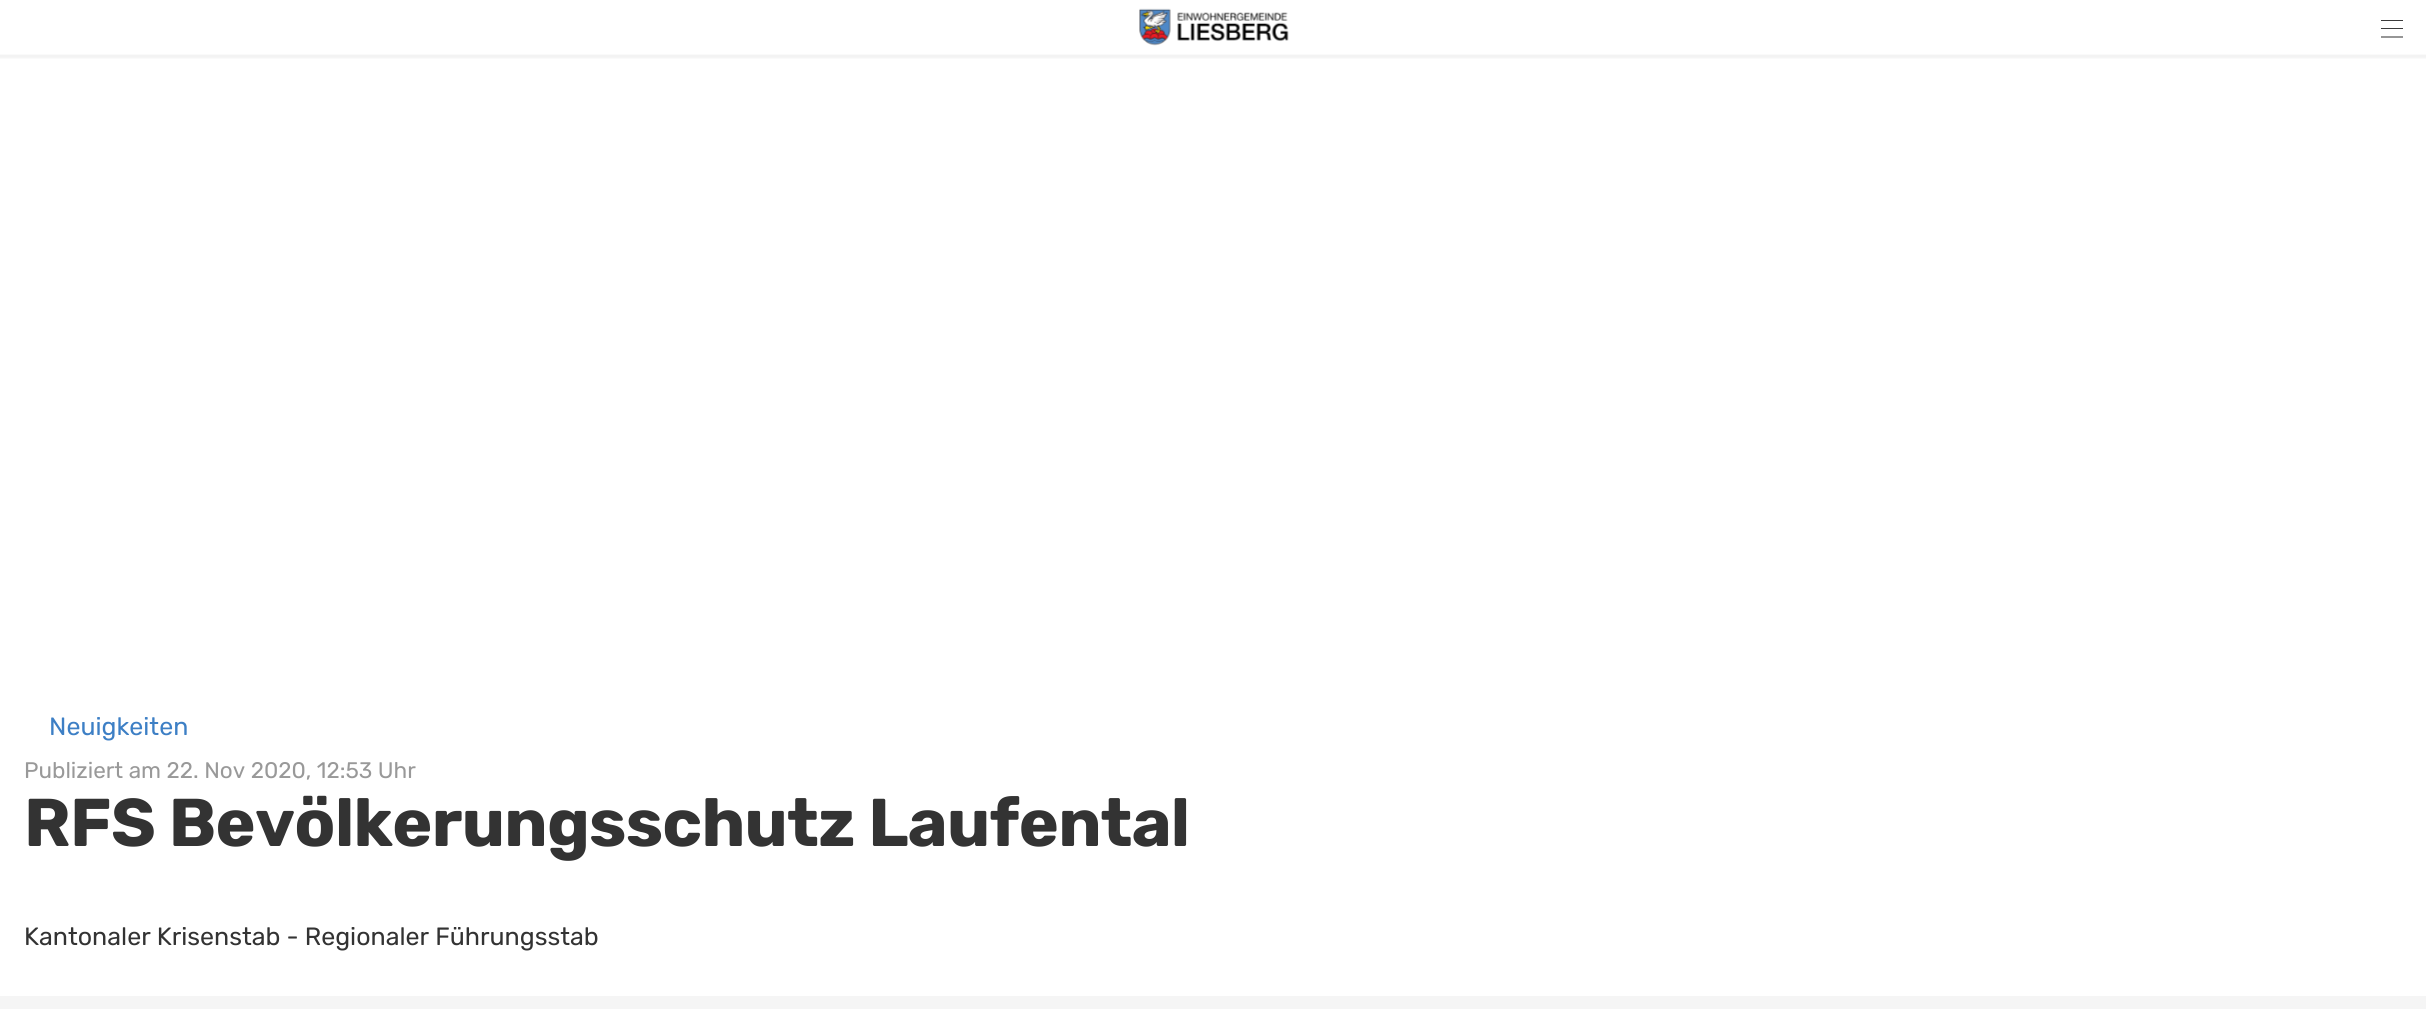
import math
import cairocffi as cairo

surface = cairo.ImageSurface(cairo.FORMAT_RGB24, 2426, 1009)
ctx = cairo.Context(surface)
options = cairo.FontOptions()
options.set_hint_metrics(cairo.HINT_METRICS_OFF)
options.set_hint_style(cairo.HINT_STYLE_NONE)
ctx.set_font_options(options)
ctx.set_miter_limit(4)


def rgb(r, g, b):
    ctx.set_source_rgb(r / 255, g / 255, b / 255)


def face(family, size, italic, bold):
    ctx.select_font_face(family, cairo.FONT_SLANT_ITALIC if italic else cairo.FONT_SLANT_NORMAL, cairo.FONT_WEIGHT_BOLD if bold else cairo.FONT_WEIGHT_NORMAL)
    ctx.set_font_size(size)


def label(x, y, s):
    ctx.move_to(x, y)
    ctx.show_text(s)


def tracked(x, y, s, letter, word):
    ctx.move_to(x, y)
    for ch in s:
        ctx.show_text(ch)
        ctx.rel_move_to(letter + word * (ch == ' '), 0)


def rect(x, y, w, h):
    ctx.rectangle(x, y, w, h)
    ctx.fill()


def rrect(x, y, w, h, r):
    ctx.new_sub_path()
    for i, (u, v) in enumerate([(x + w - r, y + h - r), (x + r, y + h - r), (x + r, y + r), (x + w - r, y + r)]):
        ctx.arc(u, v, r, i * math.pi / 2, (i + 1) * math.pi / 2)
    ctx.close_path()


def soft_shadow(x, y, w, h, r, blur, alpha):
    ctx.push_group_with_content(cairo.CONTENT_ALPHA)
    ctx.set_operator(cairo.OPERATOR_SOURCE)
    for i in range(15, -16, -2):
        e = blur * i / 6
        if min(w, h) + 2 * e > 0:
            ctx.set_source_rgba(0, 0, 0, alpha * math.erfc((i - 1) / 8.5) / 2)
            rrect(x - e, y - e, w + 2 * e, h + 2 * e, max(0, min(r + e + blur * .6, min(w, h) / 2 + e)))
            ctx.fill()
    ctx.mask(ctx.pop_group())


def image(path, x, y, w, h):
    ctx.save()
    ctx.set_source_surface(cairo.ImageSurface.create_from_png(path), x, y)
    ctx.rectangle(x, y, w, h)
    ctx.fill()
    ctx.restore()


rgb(255, 255, 255)
ctx.paint()
ctx.save()
ctx.rectangle(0, 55, 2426, 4)
ctx.clip()
rgb(0, 0, 0)
soft_shadow(-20, -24, 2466, 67, 0, 8, 1)
ctx.restore()
rgb(250, 250, 250)
rect(0, 54, 2426, 1)
image('image0.png', 1139, 8, 150, 38)
rgb(59, 59, 59)
rect(2381, 20, 22, 1)
rect(2381, 28, 22, 1)
ctx.new_path()
ctx.move_to(2381, 37)
ctx.line_to(2403, 37)
ctx.set_line_width(1.1)
ctx.set_line_join(cairo.LINE_JOIN_ROUND)
ctx.stroke()
face('Rubik', 25, 0, 0)
rgb(61, 127, 197)
label(49, 735, 'Neuigkeiten')
face('Rubik', 22.5, 0, 0)
rgb(153, 153, 153)
label(24, 778, 'Publiziert am 22. Nov 2020, 12:53 Uhr')
face('Rubik', 67.5, 0, 1)
rgb(51, 51, 51)
tracked(24, 846, 'RFS Bevölkerungsschutz Laufental', -0.7, 0)
face('Rubik', 25, 0, 0)
label(24, 945, 'Kantonaler Krisenstab - Regionaler Führungsstab')
rgb(245, 245, 245)
rect(0, 996, 2426, 13)
surface.write_to_png('render.png')
